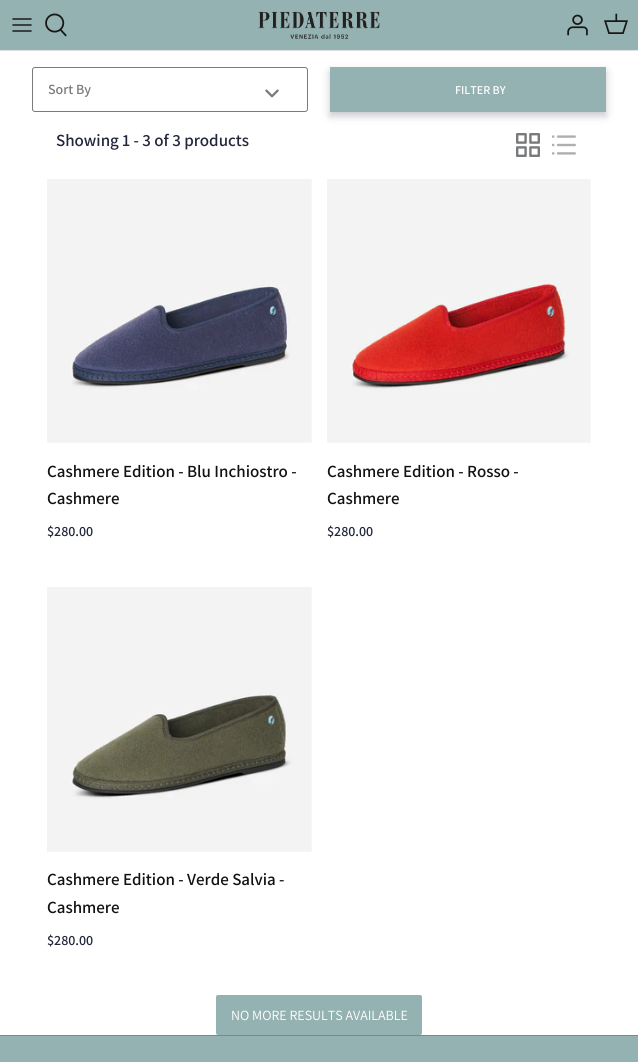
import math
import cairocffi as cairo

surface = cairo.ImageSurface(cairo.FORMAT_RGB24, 638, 1062)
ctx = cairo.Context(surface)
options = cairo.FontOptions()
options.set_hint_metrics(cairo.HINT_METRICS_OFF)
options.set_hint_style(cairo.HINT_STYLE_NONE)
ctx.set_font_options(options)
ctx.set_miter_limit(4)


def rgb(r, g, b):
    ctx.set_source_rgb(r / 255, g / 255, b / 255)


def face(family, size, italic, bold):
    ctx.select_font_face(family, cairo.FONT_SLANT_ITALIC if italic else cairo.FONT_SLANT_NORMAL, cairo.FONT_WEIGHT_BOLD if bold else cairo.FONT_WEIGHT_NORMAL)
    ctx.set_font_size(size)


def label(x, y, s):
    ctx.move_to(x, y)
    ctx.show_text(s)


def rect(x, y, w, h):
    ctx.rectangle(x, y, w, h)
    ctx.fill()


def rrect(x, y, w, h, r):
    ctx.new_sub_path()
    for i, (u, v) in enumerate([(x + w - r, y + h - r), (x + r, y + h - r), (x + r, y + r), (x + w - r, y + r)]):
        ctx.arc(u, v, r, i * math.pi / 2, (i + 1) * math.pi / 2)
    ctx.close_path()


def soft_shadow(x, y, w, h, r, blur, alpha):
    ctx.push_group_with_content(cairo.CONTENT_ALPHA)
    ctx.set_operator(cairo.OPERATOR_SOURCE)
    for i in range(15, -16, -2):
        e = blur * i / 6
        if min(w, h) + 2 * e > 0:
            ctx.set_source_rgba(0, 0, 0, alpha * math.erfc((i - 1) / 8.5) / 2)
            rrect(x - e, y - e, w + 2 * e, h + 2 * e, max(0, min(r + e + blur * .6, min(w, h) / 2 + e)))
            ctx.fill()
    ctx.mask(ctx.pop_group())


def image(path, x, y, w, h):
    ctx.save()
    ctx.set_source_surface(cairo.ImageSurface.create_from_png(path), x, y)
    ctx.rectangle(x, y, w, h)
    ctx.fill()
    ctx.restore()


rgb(255, 255, 255)
ctx.paint()
rgb(148, 178, 178)
rect(0, 0, 638, 50)
rgb(223, 227, 232)
rect(0, 50, 638, 1)
image('image0.png', 12, 18, 20, 14)
image('image1.png', 45, 13, 22, 24)
image('image2.png', 258, 11, 122, 28)
image('image3.png', 567, 14, 21, 22)
image('image4.png', 604, 13, 24, 21)
rrect(32.5, 67.5, 275, 44, 2.5)
rgb(120, 122, 124)
ctx.set_line_width(1)
ctx.stroke()
face('Assistant SemiBold', 14, 0, 0)
label(48, 94, 'Sort By')
image('image5.png', 265, 89, 14, 9)
rgb(35, 38, 59)
soft_shadow(330, 71, 276, 45, 0, 4, 0.25)
rgb(148, 178, 178)
rect(330, 67, 276, 45)
face('Assistant SemiBold', 12, 0, 0)
rgb(255, 255, 255)
label(455, 94, 'FILTER BY')
face('Assistant SemiBold', 17, 0, 0)
rgb(35, 38, 59)
label(56, 146, 'Showing 1 - 3 of 3 products')
image('image6.png', 516, 133, 24, 24)
image('image7.png', 552, 135, 24, 20)
image('image8.png', 47, 179, 265, 264)
rgb(18, 18, 18)
label(47, 477, 'Cashmere Edition - Blu Inchiostro -')
label(47, 504, 'Cashmere')
face('Assistant SemiBold', 14, 0, 0)
rgb(35, 38, 59)
label(47, 536, '$280.00')
image('image9.png', 327, 179, 264, 264)
face('Assistant SemiBold', 17, 0, 0)
rgb(18, 18, 18)
label(327, 477, 'Cashmere Edition - Rosso -')
label(327, 504, 'Cashmere')
face('Assistant SemiBold', 14, 0, 0)
rgb(35, 38, 59)
label(327, 536, '$280.00')
image('image10.png', 47, 587, 265, 265)
face('Assistant SemiBold', 17, 0, 0)
rgb(18, 18, 18)
label(47, 885, 'Cashmere Edition - Verde Salvia -')
label(47, 913, 'Cashmere')
face('Assistant SemiBold', 14, 0, 0)
rgb(35, 38, 59)
label(47, 945, '$280.00')
rgb(148, 178, 178)
rrect(216, 995, 206, 40, 2)
ctx.fill()
face('Assistant', 14, 0, 0)
rgb(255, 255, 255)
label(231, 1020, 'NO MORE RESULTS AVAILABLE')
rgb(148, 178, 178)
rect(0, 1036, 638, 26)
rgb(110, 143, 143)
rect(0, 1035, 638, 1)
surface.write_to_png('render.png')
